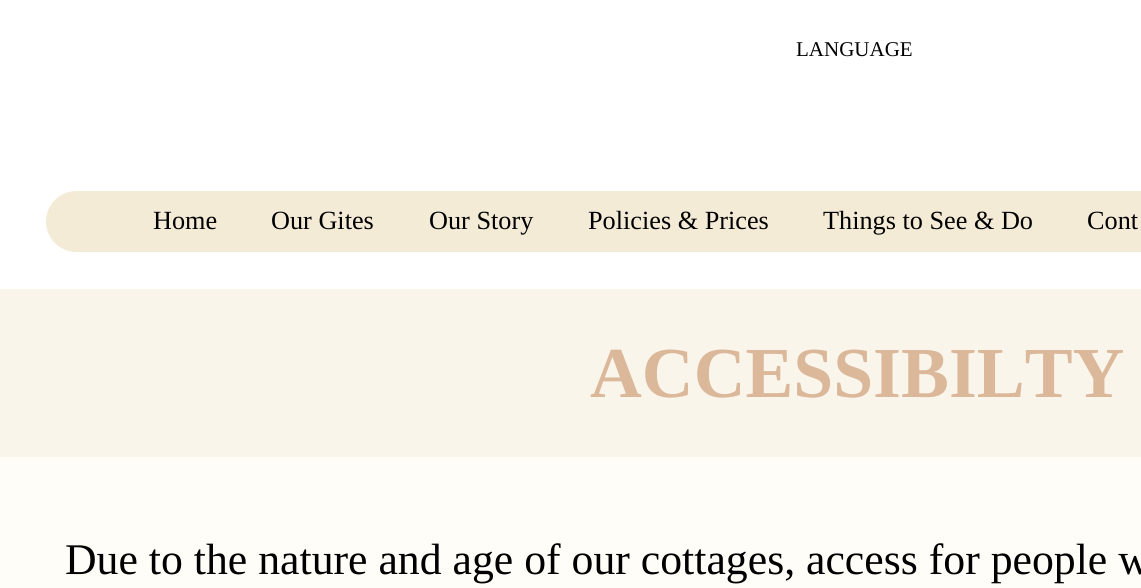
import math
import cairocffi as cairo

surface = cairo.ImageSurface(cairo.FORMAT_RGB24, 1141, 588)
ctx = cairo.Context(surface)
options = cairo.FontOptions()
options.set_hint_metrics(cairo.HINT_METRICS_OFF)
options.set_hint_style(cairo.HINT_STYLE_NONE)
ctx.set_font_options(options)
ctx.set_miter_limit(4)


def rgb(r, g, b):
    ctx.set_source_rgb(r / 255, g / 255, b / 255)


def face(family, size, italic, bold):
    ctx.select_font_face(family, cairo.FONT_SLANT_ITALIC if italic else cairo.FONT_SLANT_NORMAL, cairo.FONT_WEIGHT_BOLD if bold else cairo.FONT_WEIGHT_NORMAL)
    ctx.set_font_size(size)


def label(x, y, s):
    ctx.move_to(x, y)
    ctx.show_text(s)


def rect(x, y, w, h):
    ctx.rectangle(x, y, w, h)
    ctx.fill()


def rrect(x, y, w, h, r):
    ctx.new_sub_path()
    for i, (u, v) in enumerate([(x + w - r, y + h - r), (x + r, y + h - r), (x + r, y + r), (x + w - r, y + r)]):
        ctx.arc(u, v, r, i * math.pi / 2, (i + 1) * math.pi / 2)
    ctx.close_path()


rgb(255, 255, 255)
ctx.paint()
face('Liberation Serif', 21, 0, 0)
rgb(0, 0, 0)
label(796, 56, 'LANGUAGE')
rgb(244, 235, 215)
rrect(46, 191, 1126, 61, 30.5)
ctx.fill()
face('Liberation Serif', 26.25, 0, 0)
rgb(0, 0, 0)
label(153, 229, 'Home')
label(271, 229, 'Our Gites')
label(429, 229, 'Our Story')
label(588, 229, 'Policies & Prices')
label(823, 229, 'Things to See & Do')
label(1087, 229, 'Cont')
rgb(250, 245, 235)
rect(0, 289, 1141, 168)
face('Liberation Serif', 71.75, 0, 1)
rgb(219, 184, 154)
label(590, 397, 'ACCESSIBILTY')
rgb(255, 253, 247)
rect(0, 457, 1141, 131)
face('Liberation Serif', 43.75, 0, 0)
rgb(0, 0, 0)
label(65, 574, 'Due to the nature and age of our cottages, access for people w')
surface.write_to_png('render.png')
